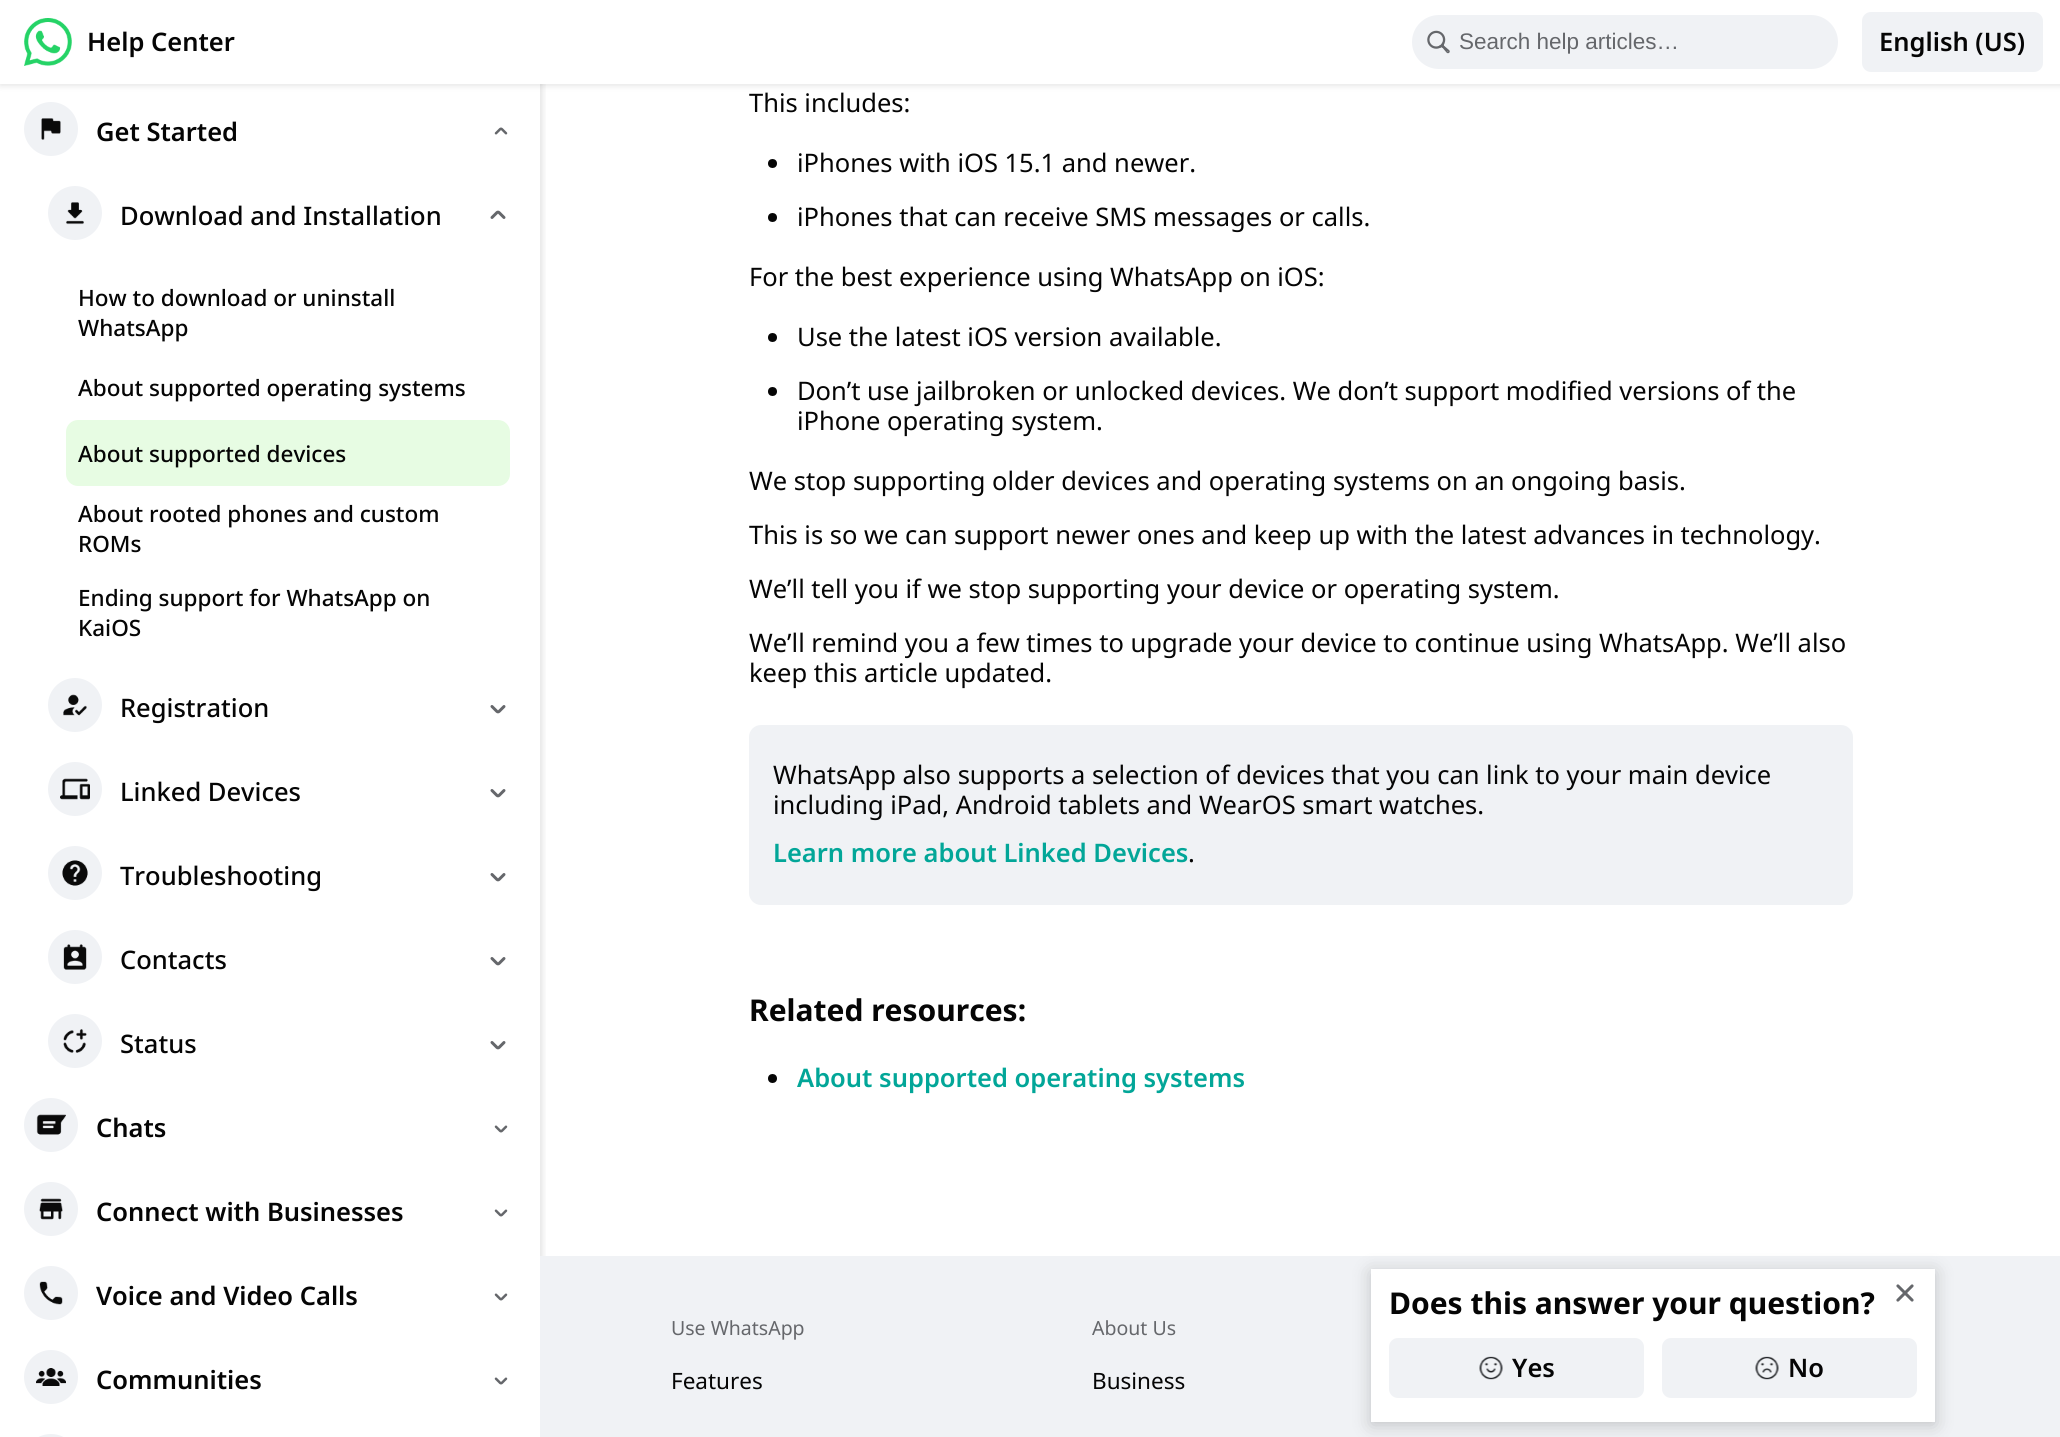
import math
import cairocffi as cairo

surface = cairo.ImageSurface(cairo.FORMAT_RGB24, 2060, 1437)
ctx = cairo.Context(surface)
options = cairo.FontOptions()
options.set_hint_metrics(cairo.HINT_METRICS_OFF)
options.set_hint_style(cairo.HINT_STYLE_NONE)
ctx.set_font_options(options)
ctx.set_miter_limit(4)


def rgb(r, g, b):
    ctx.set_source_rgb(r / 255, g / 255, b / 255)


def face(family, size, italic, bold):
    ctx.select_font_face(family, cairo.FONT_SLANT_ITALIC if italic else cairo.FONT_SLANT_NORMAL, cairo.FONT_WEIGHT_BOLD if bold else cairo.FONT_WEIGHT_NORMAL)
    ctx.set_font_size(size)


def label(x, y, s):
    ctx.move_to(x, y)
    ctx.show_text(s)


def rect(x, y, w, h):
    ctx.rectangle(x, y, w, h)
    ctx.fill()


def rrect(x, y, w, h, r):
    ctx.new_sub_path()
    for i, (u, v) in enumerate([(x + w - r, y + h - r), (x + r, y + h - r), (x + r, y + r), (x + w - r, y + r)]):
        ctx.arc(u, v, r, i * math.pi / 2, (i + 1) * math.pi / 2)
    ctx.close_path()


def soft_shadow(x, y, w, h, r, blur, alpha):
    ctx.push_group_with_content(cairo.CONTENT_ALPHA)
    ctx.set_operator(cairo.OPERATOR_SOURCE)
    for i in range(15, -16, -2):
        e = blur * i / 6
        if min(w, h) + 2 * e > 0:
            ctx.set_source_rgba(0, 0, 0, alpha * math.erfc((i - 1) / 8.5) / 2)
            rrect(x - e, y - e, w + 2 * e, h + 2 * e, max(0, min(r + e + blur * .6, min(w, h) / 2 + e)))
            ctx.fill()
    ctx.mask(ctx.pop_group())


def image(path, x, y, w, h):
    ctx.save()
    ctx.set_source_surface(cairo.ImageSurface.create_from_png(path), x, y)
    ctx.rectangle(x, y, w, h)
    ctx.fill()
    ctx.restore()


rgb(255, 255, 255)
ctx.paint()
rgb(0, 0, 0)
soft_shadow(0, 2, 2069, 84, 0, 3, 0.1)
ctx.save()
ctx.rectangle(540, 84, 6, 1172)
ctx.clip()
soft_shadow(9, 3, 534, 1431, 0, 3, 0.1)
ctx.restore()
rgb(255, 255, 255)
rect(0, 0, 2060, 84)
image('image0.png', 24, 18, 48, 48)
face('Noto Sans SemiBold', 25.5, 0, 0)
rgb(5, 5, 5)
label(87, 51, 'Help Center')
rgb(240, 242, 245)
rrect(1412, 15, 426, 54, 27)
ctx.fill()
image('image1.png', 1427, 30, 23, 24)
face('Liberation Sans', 22.5, 0, 0)
rgb(101, 103, 107)
label(1459, 49, 'Search help articles…')
rgb(240, 242, 245)
rrect(1862, 12, 181, 60, 9)
ctx.fill()
face('Noto Sans SemiBold', 25.5, 0, 0)
rgb(5, 5, 5)
label(1879, 51, 'English (US)')
rgb(240, 242, 245)
ctx.new_path()
ctx.arc(51, 129, 27, 0, 2 * math.pi)
ctx.fill()
image('image2.png', 41, 118, 20, 22)
rgb(5, 5, 5)
label(96, 141, 'Get Started')
image('image3.png', 494, 127, 14, 8)
rgb(240, 242, 245)
ctx.arc(75, 213, 27, 0, 2 * math.pi)
ctx.fill()
image('image4.png', 66, 202, 18, 23)
face('Noto Sans Medium', 25.5, 0, 0)
rgb(5, 5, 5)
label(120, 225, 'Download and Installation')
image('image5.png', 490, 210, 16, 9)
face('Noto Sans Medium', 22.5, 0, 0)
label(78, 306, 'How to download or uninstall')
label(78, 336, 'WhatsApp')
label(78, 396, 'About supported operating systems')
rgb(231, 252, 227)
rrect(66, 420, 444, 66, 12)
ctx.fill()
rgb(5, 5, 5)
label(78, 462, 'About supported devices')
label(78, 522, 'About rooted phones and custom')
label(78, 552, 'ROMs')
label(78, 606, 'Ending support for WhatsApp on')
label(78, 636, 'KaiOS')
rgb(240, 242, 245)
ctx.new_path()
ctx.arc(75, 705, 27, 0, 2 * math.pi)
ctx.fill()
image('image6.png', 63, 694, 24, 22)
face('Noto Sans Medium', 25.5, 0, 0)
rgb(5, 5, 5)
label(120, 717, 'Registration')
image('image7.png', 490, 705, 16, 9)
rgb(240, 242, 245)
ctx.arc(75, 789, 27, 0, 2 * math.pi)
ctx.fill()
image('image8.png', 60, 778, 30, 22)
rgb(5, 5, 5)
label(120, 801, 'Linked Devices')
image('image7.png', 490, 789, 16, 9)
rgb(240, 242, 245)
ctx.arc(75, 873, 27, 0, 2 * math.pi)
ctx.fill()
image('image9.png', 62, 860, 26, 26)
rgb(5, 5, 5)
label(120, 885, 'Troubleshooting')
image('image7.png', 490, 873, 16, 9)
rgb(240, 242, 245)
ctx.arc(75, 957, 27, 0, 2 * math.pi)
ctx.fill()
image('image10.png', 63, 944, 24, 26)
rgb(5, 5, 5)
label(120, 969, 'Contacts')
image('image7.png', 490, 957, 16, 9)
rgb(240, 242, 245)
ctx.arc(75, 1041, 27, 0, 2 * math.pi)
ctx.fill()
image('image11.png', 63, 1029, 24, 24)
rgb(5, 5, 5)
label(120, 1053, 'Status')
image('image7.png', 490, 1041, 16, 9)
rgb(240, 242, 245)
ctx.arc(51, 1125, 27, 0, 2 * math.pi)
ctx.fill()
image('image12.png', 36, 1114, 30, 21)
face('Noto Sans SemiBold', 25.5, 0, 0)
rgb(5, 5, 5)
label(96, 1137, 'Chats')
image('image13.png', 494, 1125, 14, 8)
rgb(240, 242, 245)
ctx.arc(51, 1209, 27, 0, 2 * math.pi)
ctx.fill()
image('image14.png', 39, 1198, 24, 22)
rgb(5, 5, 5)
label(96, 1221, 'Connect with Businesses')
image('image13.png', 494, 1209, 14, 8)
rgb(240, 242, 245)
ctx.arc(51, 1293, 27, 0, 2 * math.pi)
ctx.fill()
image('image15.png', 39, 1281, 24, 24)
rgb(5, 5, 5)
label(96, 1305, 'Voice and Video Calls')
image('image13.png', 494, 1293, 14, 8)
rgb(240, 242, 245)
ctx.arc(51, 1377, 27, 0, 2 * math.pi)
ctx.fill()
image('image16.png', 36, 1368, 30, 18)
rgb(5, 5, 5)
label(96, 1389, 'Communities')
image('image13.png', 494, 1377, 14, 8)
rgb(240, 242, 245)
ctx.new_path()
ctx.move_to(51, 1434)
ctx.curve_to(66, 1434, 78, 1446, 78, 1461)
ctx.line_to(78, 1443)
ctx.line_to(24, 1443)
ctx.line_to(24, 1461)
ctx.curve_to(24, 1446, 36, 1434, 51, 1434)
ctx.close_path()
ctx.fill()
face('Noto Sans', 25.5, 0, 0)
rgb(5, 5, 5)
label(749, 112, 'This includes:')
ctx.new_path()
ctx.arc(772.5, 163.5, 4.5, 0, 2 * math.pi)
ctx.fill()
label(797, 172, 'iPhones with iOS 15.1 and newer.')
ctx.new_path()
ctx.arc(772.5, 217.5, 4.5, 0, 2 * math.pi)
ctx.fill()
label(797, 226, 'iPhones that can receive SMS messages or calls.')
label(749, 286, 'For the best experience using WhatsApp on iOS:')
ctx.new_path()
ctx.arc(772.5, 337.5, 4.5, 0, 2 * math.pi)
ctx.fill()
label(797, 346, 'Use the latest iOS version available.')
ctx.new_path()
ctx.arc(772.5, 391.5, 4.5, 0, 2 * math.pi)
ctx.fill()
label(797, 400, 'Don’t use jailbroken or unlocked devices. We don’t support modified versions of the')
label(797, 430, 'iPhone operating system.')
label(749, 490, 'We stop supporting older devices and operating systems on an ongoing basis.')
label(749, 544, 'This is so we can support newer ones and keep up with the latest advances in technology.')
label(749, 598, 'We’ll tell you if we stop supporting your device or operating system.')
label(749, 652, 'We’ll remind you a few times to upgrade your device to continue using WhatsApp. We’ll also')
label(749, 682, 'keep this article updated.')
rgb(240, 242, 245)
rrect(749, 725, 1104, 180, 12)
ctx.fill()
rgb(5, 5, 5)
label(773, 784, 'WhatsApp also supports a selection of devices that you can link to your main device')
label(773, 814, 'including iPad, Android tablets and WearOS smart watches.')
face('Noto Sans SemiBold', 25.5, 0, 0)
rgb(2, 166, 152)
label(773, 862, 'Learn more about Linked Devices')
face('Noto Sans', 25.5, 0, 0)
rgb(5, 5, 5)
label(1188, 862, '.')
face('Noto Sans', 30, 0, 1)
label(749, 1021, 'Related resources:')
ctx.new_path()
ctx.arc(772.5, 1078.5, 4.5, 0, 2 * math.pi)
ctx.fill()
face('Noto Sans SemiBold', 25.5, 0, 0)
rgb(2, 166, 152)
label(797, 1087, 'About supported operating systems')
rgb(240, 242, 245)
rect(540, 1256, 1520, 181)
face('Noto Sans', 19.5, 0, 0)
rgb(101, 103, 107)
label(671, 1335, 'Use WhatsApp')
face('Noto Sans', 22.5, 0, 0)
rgb(5, 5, 5)
label(671, 1389, 'Features')
face('Noto Sans', 19.5, 0, 0)
rgb(101, 103, 107)
label(1092, 1335, 'About Us')
face('Noto Sans', 22.5, 0, 0)
rgb(5, 5, 5)
label(1092, 1389, 'Business')
rgb(0, 0, 0)
soft_shadow(1371, 1272, 564, 153, 0, 9, 0.2)
rgb(255, 255, 255)
rect(1371, 1269, 564, 153)
face('Noto Sans', 30, 0, 1)
rgb(5, 5, 5)
label(1389, 1314, 'Does this answer your question?')
image('image17.png', 1896, 1284, 18, 18)
rgb(240, 242, 245)
rrect(1389, 1338, 255, 60, 9)
ctx.fill()
image('image18.png', 1479, 1356, 24, 24)
face('Noto Sans SemiBold', 25.5, 0, 0)
rgb(5, 5, 5)
label(1512, 1377, 'Yes')
rgb(240, 242, 245)
rrect(1662, 1338, 255, 60, 9)
ctx.fill()
image('image19.png', 1755, 1356, 24, 24)
rgb(5, 5, 5)
label(1788, 1377, 'No')
surface.write_to_png('render.png')
